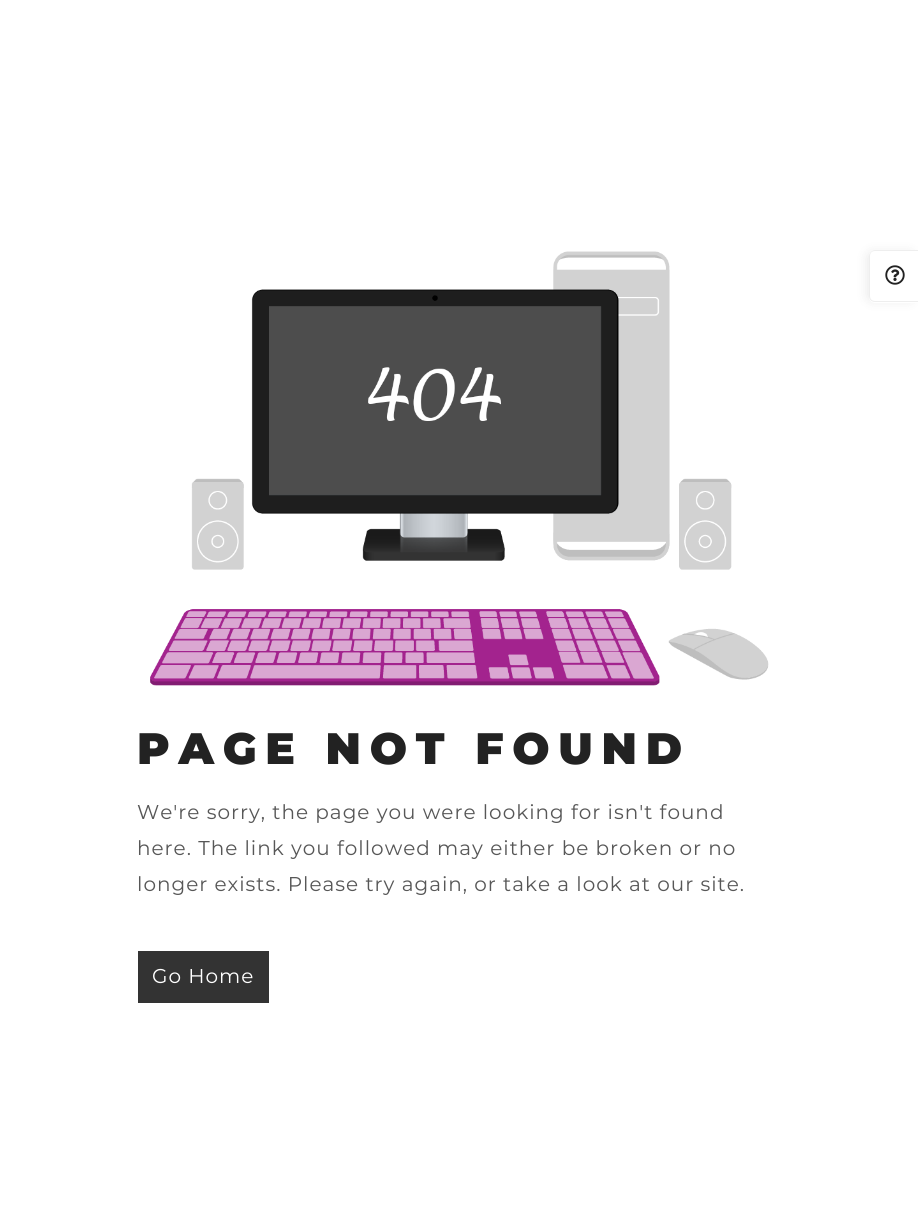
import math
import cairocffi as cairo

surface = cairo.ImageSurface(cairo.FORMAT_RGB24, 918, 1215)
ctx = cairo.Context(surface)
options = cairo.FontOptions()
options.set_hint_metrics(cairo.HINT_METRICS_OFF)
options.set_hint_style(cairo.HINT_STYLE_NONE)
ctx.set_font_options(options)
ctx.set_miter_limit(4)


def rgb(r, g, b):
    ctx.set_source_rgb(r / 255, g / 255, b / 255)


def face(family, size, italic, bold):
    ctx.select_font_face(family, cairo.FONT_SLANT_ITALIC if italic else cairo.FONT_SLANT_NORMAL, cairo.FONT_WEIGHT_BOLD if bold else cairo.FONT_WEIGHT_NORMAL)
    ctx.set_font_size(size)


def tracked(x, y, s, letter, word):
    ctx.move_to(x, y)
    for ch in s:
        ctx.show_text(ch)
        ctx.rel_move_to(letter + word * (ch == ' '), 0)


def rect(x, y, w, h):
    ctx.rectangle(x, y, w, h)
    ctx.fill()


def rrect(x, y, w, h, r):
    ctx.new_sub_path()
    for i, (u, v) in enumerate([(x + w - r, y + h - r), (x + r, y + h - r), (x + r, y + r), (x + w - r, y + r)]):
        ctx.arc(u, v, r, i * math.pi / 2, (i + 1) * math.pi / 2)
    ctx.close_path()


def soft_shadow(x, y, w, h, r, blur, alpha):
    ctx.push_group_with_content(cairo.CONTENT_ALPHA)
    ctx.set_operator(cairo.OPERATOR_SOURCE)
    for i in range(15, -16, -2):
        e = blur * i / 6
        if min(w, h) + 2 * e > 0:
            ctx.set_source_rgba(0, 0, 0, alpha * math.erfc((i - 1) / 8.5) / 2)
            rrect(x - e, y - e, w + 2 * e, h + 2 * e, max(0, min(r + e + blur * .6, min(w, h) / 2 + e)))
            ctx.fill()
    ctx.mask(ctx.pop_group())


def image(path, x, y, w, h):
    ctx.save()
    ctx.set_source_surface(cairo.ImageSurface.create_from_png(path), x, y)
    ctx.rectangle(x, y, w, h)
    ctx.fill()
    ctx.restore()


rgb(255, 255, 255)
ctx.paint()
rgb(0, 0, 0)
soft_shadow(868, 253, 45, 47, 4, 6, 0.1)
rgb(255, 255, 255)
ctx.new_path()
ctx.move_to(875, 250)
ctx.line_to(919, 250)
ctx.line_to(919, 303)
ctx.line_to(875, 303)
ctx.curve_to(871.5, 303, 869, 300.5, 869, 297)
ctx.line_to(869, 256)
ctx.curve_to(869, 252.5, 871.5, 250, 875, 250)
ctx.close_path()
ctx.fill()
rgb(238, 238, 238)
ctx.set_fill_rule(cairo.FILL_RULE_EVEN_ODD)
ctx.new_path()
ctx.move_to(875, 250)
ctx.line_to(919, 250)
ctx.line_to(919, 302)
ctx.line_to(875, 302)
ctx.curve_to(872, 302, 869, 300, 869, 296)
ctx.line_to(869, 256)
ctx.curve_to(869, 253, 872, 250, 875, 250)
ctx.close_path()
ctx.move_to(875, 251)
ctx.line_to(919, 251)
ctx.line_to(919, 301)
ctx.line_to(875, 301)
ctx.curve_to(872, 301, 870, 299, 870, 296)
ctx.line_to(870, 256)
ctx.curve_to(870, 253, 872, 251, 875, 251)
ctx.close_path()
ctx.fill()
image('image0.png', 885, 265, 20, 20)
image('image1.png', 150, 251, 619, 435)
face('Montserrat Black', 44, 0, 0)
rgb(34, 34, 34)
tracked(137, 764, 'PAGE NOT FOUND', 8.75, 0)
face('Montserrat', 20, 0, 0)
rgb(87, 87, 87)
tracked(137, 819, 'We\'re sorry, the page you were looking for isn\'t found', 1, 0)
tracked(137, 855, 'here. The link you followed may either be broken or no', 1, 0)
tracked(137, 891, 'longer exists. Please try again, or take a look at our site.', 1, 0)
rgb(51, 51, 51)
rect(138, 951, 131, 52)
rgb(255, 255, 255)
tracked(152, 983, 'Go Home', 1, 0)
surface.write_to_png('render.png')
